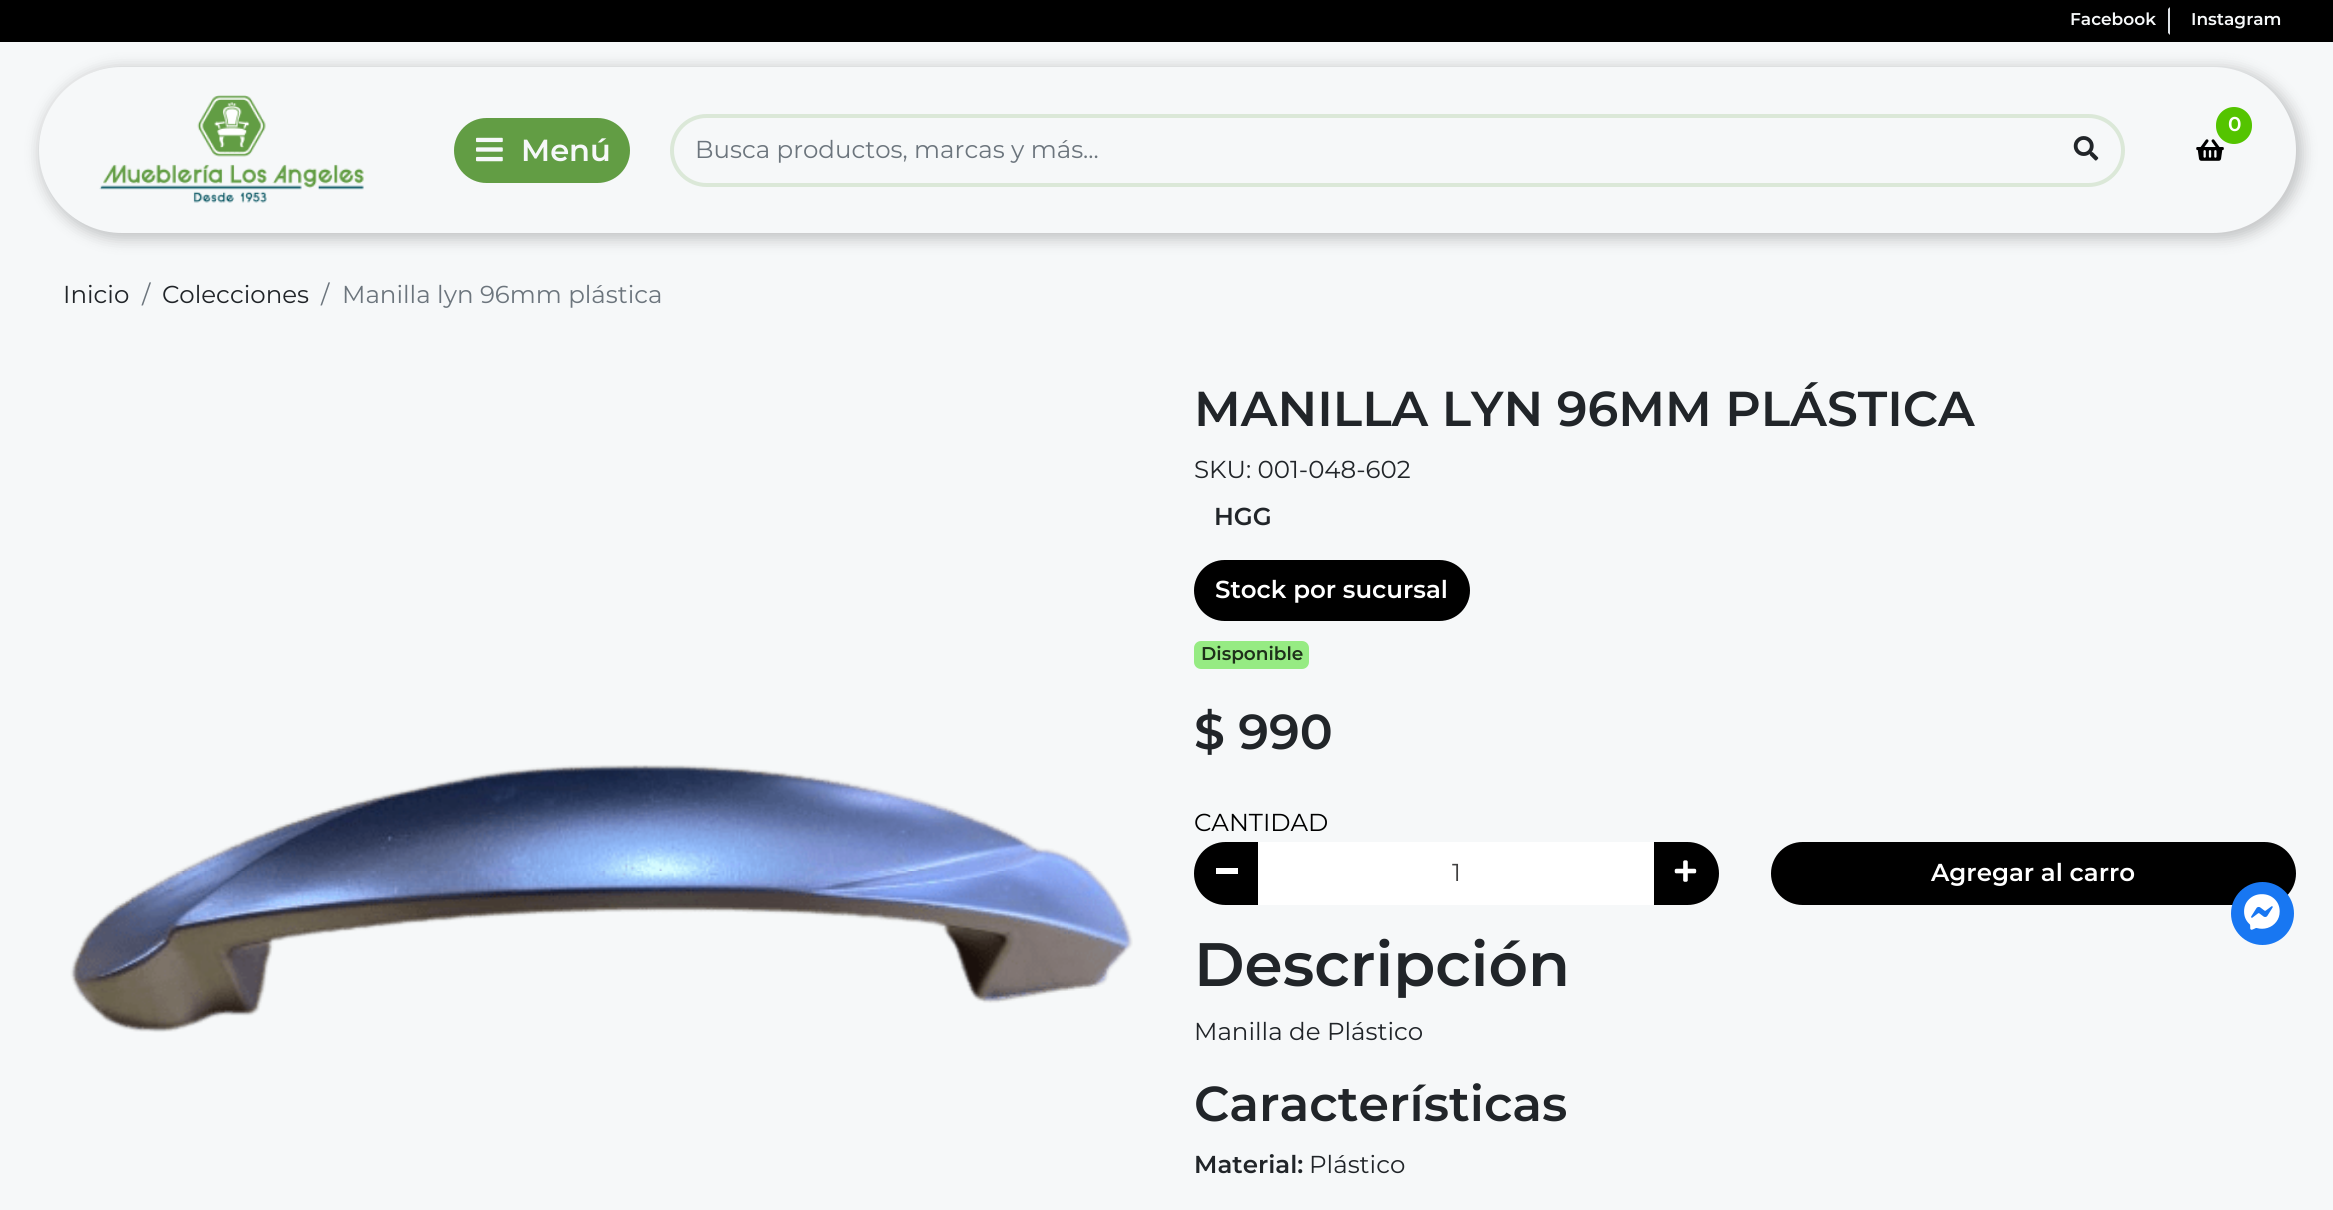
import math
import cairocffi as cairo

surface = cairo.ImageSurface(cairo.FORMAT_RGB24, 2333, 1210)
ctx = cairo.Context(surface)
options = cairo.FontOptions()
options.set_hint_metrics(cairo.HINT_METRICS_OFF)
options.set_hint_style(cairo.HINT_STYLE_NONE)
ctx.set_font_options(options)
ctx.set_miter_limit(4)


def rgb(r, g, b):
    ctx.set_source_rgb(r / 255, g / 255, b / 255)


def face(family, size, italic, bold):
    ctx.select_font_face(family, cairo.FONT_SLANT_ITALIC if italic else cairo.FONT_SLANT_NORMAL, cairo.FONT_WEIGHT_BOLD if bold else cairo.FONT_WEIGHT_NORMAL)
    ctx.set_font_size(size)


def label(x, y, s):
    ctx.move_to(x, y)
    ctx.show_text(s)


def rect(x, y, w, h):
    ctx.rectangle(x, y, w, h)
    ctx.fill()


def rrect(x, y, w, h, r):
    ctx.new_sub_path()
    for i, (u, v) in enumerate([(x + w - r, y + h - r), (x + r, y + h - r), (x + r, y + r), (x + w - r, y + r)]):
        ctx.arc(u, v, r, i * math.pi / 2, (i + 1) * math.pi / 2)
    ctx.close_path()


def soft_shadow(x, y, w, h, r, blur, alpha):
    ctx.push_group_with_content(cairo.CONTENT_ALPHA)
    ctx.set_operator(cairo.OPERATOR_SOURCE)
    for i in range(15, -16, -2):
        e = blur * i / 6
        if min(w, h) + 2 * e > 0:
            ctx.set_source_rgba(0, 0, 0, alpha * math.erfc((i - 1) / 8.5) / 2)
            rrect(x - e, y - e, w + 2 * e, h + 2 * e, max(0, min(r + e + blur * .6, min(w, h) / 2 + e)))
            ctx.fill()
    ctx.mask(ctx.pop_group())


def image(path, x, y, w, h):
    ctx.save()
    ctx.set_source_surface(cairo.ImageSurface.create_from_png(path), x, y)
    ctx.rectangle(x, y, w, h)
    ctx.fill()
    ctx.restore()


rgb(246, 248, 249)
ctx.paint()
rgb(0, 0, 0)
rect(0, 0, 2333, 42)
rgb(222, 226, 230)
ctx.new_path()
ctx.move_to(2170, 7)
ctx.line_to(2170, 35)
ctx.line_to(2168, 33)
ctx.line_to(2168, 9)
ctx.close_path()
ctx.fill()
face('Montserrat SemiBold', 17, 0, 0)
rgb(246, 248, 249)
label(2070, 25, 'Facebook')
label(2191, 25, 'Instagram')
rgb(0, 0, 0)
soft_shadow(39, 67, 2264, 173, 86.5, 7, 0.2)
rgb(246, 248, 249)
rrect(39, 67, 2257, 166, 83)
ctx.fill()
image('image0.png', 99, 95, 265, 108)
image('image1.png', 2196, 139, 28, 22)
rgb(84, 196, 0)
rrect(2216, 107, 36, 37, 18)
ctx.fill()
face('Montserrat SemiBold', 20, 0, 0)
rgb(255, 255, 255)
label(2228, 131, '0')
rgb(98, 157, 68)
rrect(452, 116, 180, 69, 34.5)
ctx.fill_preserve()
rgb(246, 248, 249)
ctx.set_line_width(4)
ctx.stroke()
image('image2.png', 476, 137, 27, 25)
face('Montserrat SemiBold', 30.5, 0, 0)
label(521, 161, 'Menú')
rrect(672, 116, 1451, 69, 34.5)
rgb(219, 232, 216)
ctx.stroke()
face('Montserrat', 24.5, 0, 0)
rgb(108, 117, 125)
label(695, 158, 'Busca productos, marcas y más...')
image('image3.png', 2073, 136, 26, 25)
rgb(33, 37, 41)
label(63, 303, 'Inicio')
rgb(108, 117, 125)
label(142, 303, '/')
rgb(33, 37, 41)
label(162, 303, 'Colecciones')
rgb(108, 117, 125)
label(321, 303, '/')
label(342, 303, 'Manilla lyn 96mm plástica')
image('image4.png', 70, 764, 1063, 269)
face('Montserrat SemiBold', 49, 0, 0)
rgb(33, 37, 41)
label(1194, 426, 'MANILLA LYN 96MM PLÁSTICA')
face('Montserrat', 24.5, 0, 0)
label(1194, 478, 'SKU: 001-048-602')
face('Montserrat SemiBold', 24.5, 0, 0)
label(1214, 525, 'HGG')
rgb(0, 0, 0)
rrect(1196, 562, 272, 57, 28.5)
ctx.fill_preserve()
ctx.stroke()
rgb(255, 255, 255)
label(1215, 598, 'Stock por sucursal')
rgb(150, 235, 131)
rrect(1194, 641, 115, 28, 7)
ctx.fill()
face('Montserrat SemiBold', 18.5, 0, 0)
rgb(30, 47, 26)
label(1201, 660, 'Disponible')
face('Montserrat SemiBold', 49, 0, 0)
rgb(33, 37, 41)
label(1194, 749, '$ 990')
face('Montserrat', 24.5, 0, 0)
rgb(0, 0, 0)
label(1194, 831, 'CANTIDAD')
ctx.new_path()
ctx.move_to(1225.5, 844)
ctx.line_to(1256, 844)
ctx.line_to(1256, 903)
ctx.line_to(1225.5, 903)
ctx.curve_to(1209, 903, 1196, 890, 1196, 873.5)
ctx.curve_to(1196, 857, 1209, 844, 1225.5, 844)
ctx.close_path()
ctx.fill_preserve()
ctx.stroke()
rgb(255, 255, 255)
rect(1216, 868, 22, 6)
rect(1258, 842, 396, 63)
rgb(64, 63, 63)
label(1452, 881, '1')
rgb(0, 0, 0)
ctx.new_path()
ctx.move_to(1656, 844)
ctx.line_to(1687.5, 844)
ctx.curve_to(1704, 844, 1717, 857, 1717, 873.5)
ctx.curve_to(1717, 890, 1704, 903, 1687.5, 903)
ctx.line_to(1656, 903)
ctx.close_path()
ctx.fill_preserve()
ctx.stroke()
image('image5.png', 1674, 860, 23, 22)
rrect(1773, 844, 521, 59, 29.5)
ctx.fill_preserve()
ctx.stroke()
face('Montserrat SemiBold', 24.5, 0, 0)
rgb(255, 255, 255)
label(1931, 881, 'Agregar al carro')
face('Montserrat SemiBold', 61.25, 0, 0)
rgb(33, 37, 41)
label(1194, 986, 'Descripción')
face('Montserrat', 24.5, 0, 0)
label(1194, 1040, 'Manilla de Plástico')
face('Montserrat SemiBold', 49, 0, 0)
label(1194, 1121, 'Características')
face('Montserrat SemiBold', 24.5, 0, 0)
label(1194, 1173, 'Material:')
face('Montserrat', 24.5, 0, 0)
label(1309, 1173, 'Plástico')
rgb(24, 119, 242)
ctx.new_path()
ctx.arc(2262.5, 913.5, 31.5, 0, 2 * math.pi)
ctx.fill()
image('image6.png', 2244, 894, 36, 36)
surface.write_to_png('render.png')
